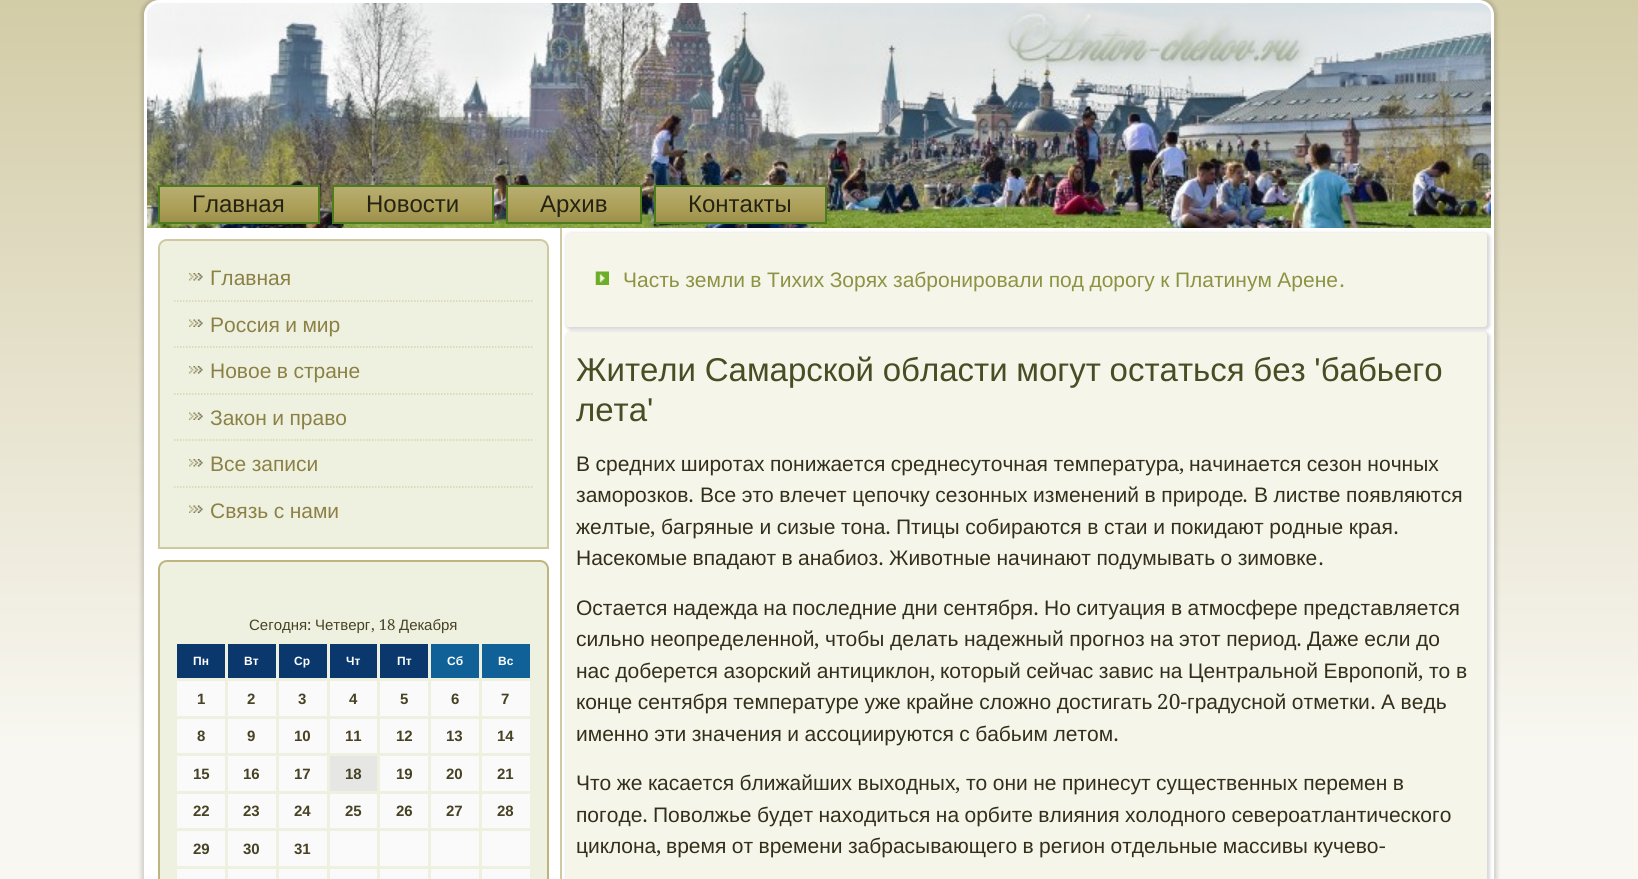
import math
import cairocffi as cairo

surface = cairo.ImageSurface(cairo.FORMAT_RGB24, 1638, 879)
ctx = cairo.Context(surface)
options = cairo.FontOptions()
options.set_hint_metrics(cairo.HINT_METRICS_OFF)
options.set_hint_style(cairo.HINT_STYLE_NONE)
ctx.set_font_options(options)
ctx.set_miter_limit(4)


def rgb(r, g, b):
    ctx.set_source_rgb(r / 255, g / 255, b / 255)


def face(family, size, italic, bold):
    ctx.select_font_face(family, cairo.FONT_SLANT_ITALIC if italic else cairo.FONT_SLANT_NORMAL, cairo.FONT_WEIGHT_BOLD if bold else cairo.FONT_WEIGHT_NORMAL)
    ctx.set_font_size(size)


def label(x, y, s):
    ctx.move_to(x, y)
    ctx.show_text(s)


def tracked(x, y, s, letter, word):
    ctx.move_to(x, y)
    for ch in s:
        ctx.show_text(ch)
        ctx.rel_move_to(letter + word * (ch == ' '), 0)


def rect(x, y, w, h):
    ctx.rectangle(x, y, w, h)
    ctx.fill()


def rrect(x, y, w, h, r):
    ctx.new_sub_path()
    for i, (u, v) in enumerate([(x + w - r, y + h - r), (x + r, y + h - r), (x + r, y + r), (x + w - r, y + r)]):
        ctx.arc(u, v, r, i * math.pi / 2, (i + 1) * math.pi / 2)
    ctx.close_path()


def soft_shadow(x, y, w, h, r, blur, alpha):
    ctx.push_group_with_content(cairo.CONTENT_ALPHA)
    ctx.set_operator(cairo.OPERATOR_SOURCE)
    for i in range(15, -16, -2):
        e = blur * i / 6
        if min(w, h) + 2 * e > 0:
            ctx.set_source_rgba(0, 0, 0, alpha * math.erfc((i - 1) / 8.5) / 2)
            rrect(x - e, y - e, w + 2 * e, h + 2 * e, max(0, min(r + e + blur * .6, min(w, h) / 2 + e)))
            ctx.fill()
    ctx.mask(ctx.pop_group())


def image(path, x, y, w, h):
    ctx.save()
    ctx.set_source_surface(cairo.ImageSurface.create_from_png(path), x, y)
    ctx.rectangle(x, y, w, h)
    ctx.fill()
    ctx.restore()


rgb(255, 255, 255)
ctx.paint()
gradient = cairo.LinearGradient(819, 0, 819, 879)
gradient.add_color_stop_rgba(0, 0.827, 0.8, 0.655, 1)
gradient.add_color_stop_rgba(0.85, 0.973, 0.969, 0.945, 1)
ctx.set_source(gradient)
rect(0, 0, 1638, 879)
rgb(0, 0, 0)
soft_shadow(141, -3, 1356, 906, 18, 2, 0.15)
rgb(255, 255, 255)
rrect(144, 0, 1350, 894, 15)
ctx.fill()
image('image0.png', 147, 3, 1344, 225)
gradient = cairo.LinearGradient(239, 185, 239, 224)
gradient.add_color_stop_rgba(0, 0.725, 0.686, 0.455, 1)
gradient.add_color_stop_rgba(0.64, 0.667, 0.616, 0.333, 1)
gradient.add_color_stop_rgba(1, 0.6, 0.553, 0.302, 1)
ctx.set_source(gradient)
rect(160, 187, 158, 35)
ctx.rectangle(159, 186, 160, 37)
rgb(78, 124, 29)
ctx.stroke()
face('Liberation Sans', 24, 0, 0)
rgb(37, 35, 19)
label(192, 212, 'Главная')
gradient = cairo.LinearGradient(413, 185, 413, 224)
gradient.add_color_stop_rgba(0, 0.725, 0.686, 0.455, 1)
gradient.add_color_stop_rgba(0.64, 0.667, 0.616, 0.333, 1)
gradient.add_color_stop_rgba(1, 0.6, 0.553, 0.302, 1)
ctx.set_source(gradient)
rect(334, 187, 158, 35)
ctx.rectangle(333, 186, 160, 37)
rgb(78, 124, 29)
ctx.stroke()
rgb(37, 35, 19)
label(366, 212, 'Новости')
gradient = cairo.LinearGradient(574, 185, 574, 224)
gradient.add_color_stop_rgba(0, 0.725, 0.686, 0.455, 1)
gradient.add_color_stop_rgba(0.64, 0.667, 0.616, 0.333, 1)
gradient.add_color_stop_rgba(1, 0.6, 0.553, 0.302, 1)
ctx.set_source(gradient)
rect(508, 187, 132, 35)
ctx.rectangle(507, 186, 134, 37)
rgb(78, 124, 29)
ctx.stroke()
rgb(37, 35, 19)
label(540, 212, 'Архив')
gradient = cairo.LinearGradient(740, 185, 740, 224)
gradient.add_color_stop_rgba(0, 0.725, 0.686, 0.455, 1)
gradient.add_color_stop_rgba(0.64, 0.667, 0.616, 0.333, 1)
gradient.add_color_stop_rgba(1, 0.6, 0.553, 0.302, 1)
ctx.set_source(gradient)
rect(656, 187, 169, 35)
ctx.rectangle(655, 186, 171, 37)
rgb(78, 124, 29)
ctx.stroke()
rgb(37, 35, 19)
label(688, 212, 'Контакты')
rgb(207, 200, 160)
rect(560, 228, 2, 651)
rgb(239, 241, 224)
ctx.new_path()
ctx.move_to(167, 240)
ctx.line_to(540, 240)
ctx.curve_to(544.5, 240, 548, 243.5, 548, 248)
ctx.line_to(548, 548)
ctx.line_to(159, 548)
ctx.line_to(159, 248)
ctx.curve_to(159, 243.5, 162.5, 240, 167, 240)
ctx.close_path()
ctx.fill_preserve()
rgb(207, 200, 160)
ctx.stroke()
image('image1.png', 189, 273, 14, 8)
face('Liberation Sans', 21, 0, 0)
rgb(139, 129, 70)
label(210, 285, 'Главная')
ctx.new_path()
ctx.move_to(174, 301)
ctx.line_to(532.5, 301)
rgb(216, 210, 177)
ctx.set_line_width(1.5)
ctx.set_dash([1.5, 1.5])
ctx.stroke()
image('image2.png', 189, 319, 14, 8)
rgb(139, 129, 70)
tracked(210, 332, 'Россия и мир', 0, -0.4)
ctx.new_path()
ctx.move_to(174, 347)
ctx.line_to(532.5, 347)
rgb(216, 210, 177)
ctx.stroke()
image('image1.png', 189, 366, 14, 8)
rgb(139, 129, 70)
tracked(210, 378, 'Новое в стране', 0, -0.4)
ctx.new_path()
ctx.move_to(174, 394)
ctx.line_to(532.5, 394)
rgb(216, 210, 177)
ctx.stroke()
image('image2.png', 189, 412, 14, 8)
rgb(139, 129, 70)
tracked(210, 425, 'Закон и право', 0, -0.4)
ctx.new_path()
ctx.move_to(174, 440)
ctx.line_to(532.5, 440)
rgb(216, 210, 177)
ctx.stroke()
image('image1.png', 189, 459, 14, 8)
rgb(139, 129, 70)
tracked(210, 471, 'Все записи', 0, -0.4)
ctx.new_path()
ctx.move_to(174, 487)
ctx.line_to(532.5, 487)
rgb(216, 210, 177)
ctx.stroke()
image('image2.png', 189, 505, 14, 8)
rgb(139, 129, 70)
tracked(210, 518, 'Связь с нами', 0, -0.4)
rgb(239, 241, 224)
rrect(159, 561, 389, 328, 8)
ctx.fill_preserve()
rgb(190, 180, 126)
ctx.set_line_width(2)
ctx.set_dash([])
ctx.stroke()
face('Liberation Sans', 15, 0, 0)
rgb(71, 66, 36)
label(249, 630, 'Сегодня')
face('Droid Serif', 15, 0, 0)
label(307, 630, ':')
face('Liberation Sans', 15, 0, 0)
label(315, 630, 'Четверг')
face('Droid Serif', 15, 0, 0)
label(371, 630, ', 18')
face('Liberation Sans', 15, 0, 0)
label(399, 630, 'Декабря')
rgb(10, 56, 108)
rect(177, 644, 48, 34)
face('Liberation Sans', 12, 0, 1)
rgb(255, 255, 255)
label(193, 665, 'Пн')
rgb(10, 56, 108)
rect(228, 644, 48, 34)
rgb(255, 255, 255)
label(244, 665, 'Вт')
rgb(10, 56, 108)
rect(279, 644, 48, 34)
rgb(255, 255, 255)
label(294, 665, 'Ср')
rgb(10, 56, 108)
rect(330, 644, 47, 34)
rgb(255, 255, 255)
label(346, 665, 'Чт')
rgb(10, 56, 108)
rect(380, 644, 48, 34)
rgb(255, 255, 255)
label(397, 665, 'Пт')
rgb(16, 97, 151)
rect(431, 644, 48, 34)
rgb(255, 255, 255)
label(447, 665, 'Сб')
rgb(16, 97, 151)
rect(482, 644, 48, 34)
rgb(255, 255, 255)
label(498, 665, 'Вс')
rgb(250, 250, 250)
rect(177, 681, 48, 35)
face('Liberation Sans', 15, 0, 1)
rgb(71, 66, 36)
label(197, 704, '1')
rgb(250, 250, 250)
rect(228, 681, 48, 35)
rgb(71, 66, 36)
label(247, 704, '2')
rgb(250, 250, 250)
rect(279, 681, 48, 35)
rgb(71, 66, 36)
label(298, 704, '3')
rgb(250, 250, 250)
rect(330, 681, 47, 35)
rgb(71, 66, 36)
label(349, 704, '4')
rgb(250, 250, 250)
rect(380, 681, 48, 35)
rgb(71, 66, 36)
label(400, 704, '5')
rgb(250, 250, 250)
rect(431, 681, 48, 35)
rgb(71, 66, 36)
label(451, 704, '6')
rgb(250, 250, 250)
rect(482, 681, 48, 35)
rgb(71, 66, 36)
label(501, 704, '7')
rgb(250, 250, 250)
rect(177, 719, 48, 34)
rgb(71, 66, 36)
label(197, 741, '8')
rgb(250, 250, 250)
rect(228, 719, 48, 34)
rgb(71, 66, 36)
label(247, 741, '9')
rgb(250, 250, 250)
rect(279, 719, 48, 34)
rgb(71, 66, 36)
label(294, 741, '10')
rgb(250, 250, 250)
rect(330, 719, 47, 34)
rgb(71, 66, 36)
label(345, 741, '11')
rgb(250, 250, 250)
rect(380, 719, 48, 34)
rgb(71, 66, 36)
label(396, 741, '12')
rgb(250, 250, 250)
rect(431, 719, 48, 34)
rgb(71, 66, 36)
label(446, 741, '13')
rgb(250, 250, 250)
rect(482, 719, 48, 34)
rgb(71, 66, 36)
label(497, 741, '14')
rgb(250, 250, 250)
rect(177, 756, 48, 35)
rgb(71, 66, 36)
label(193, 779, '15')
rgb(250, 250, 250)
rect(228, 756, 48, 35)
rgb(71, 66, 36)
label(243, 779, '16')
rgb(250, 250, 250)
rect(279, 756, 48, 35)
rgb(71, 66, 36)
label(294, 779, '17')
rgb(230, 231, 228)
rect(330, 756, 47, 35)
rgb(71, 66, 36)
label(345, 779, '18')
rgb(250, 250, 250)
rect(380, 756, 48, 35)
rgb(71, 66, 36)
label(396, 779, '19')
rgb(250, 250, 250)
rect(431, 756, 48, 35)
rgb(71, 66, 36)
label(446, 779, '20')
rgb(250, 250, 250)
rect(482, 756, 48, 35)
rgb(71, 66, 36)
label(497, 779, '21')
rgb(250, 250, 250)
rect(177, 794, 48, 34)
rgb(71, 66, 36)
label(193, 816, '22')
rgb(250, 250, 250)
rect(228, 794, 48, 34)
rgb(71, 66, 36)
label(243, 816, '23')
rgb(250, 250, 250)
rect(279, 794, 48, 34)
rgb(71, 66, 36)
label(294, 816, '24')
rgb(250, 250, 250)
rect(330, 794, 47, 34)
rgb(71, 66, 36)
label(345, 816, '25')
rgb(250, 250, 250)
rect(380, 794, 48, 34)
rgb(71, 66, 36)
label(396, 816, '26')
rgb(250, 250, 250)
rect(431, 794, 48, 34)
rgb(71, 66, 36)
label(446, 816, '27')
rgb(250, 250, 250)
rect(482, 794, 48, 34)
rgb(71, 66, 36)
label(497, 816, '28')
rgb(250, 250, 250)
rect(177, 831, 48, 35)
rgb(71, 66, 36)
label(193, 854, '29')
rgb(250, 250, 250)
rect(228, 831, 48, 35)
rgb(71, 66, 36)
label(243, 854, '30')
rgb(250, 250, 250)
rect(279, 831, 48, 35)
rgb(71, 66, 36)
label(294, 854, '31')
rgb(250, 250, 250)
rect(330, 831, 47, 35)
rect(380, 831, 48, 35)
rect(431, 831, 48, 35)
rect(482, 831, 48, 35)
rect(177, 869, 48, 10)
rect(228, 869, 48, 10)
rect(279, 869, 48, 10)
rect(330, 869, 47, 10)
rect(380, 869, 48, 10)
rect(431, 869, 48, 10)
rect(482, 869, 48, 10)
rgb(0, 0, 0)
soft_shadow(566, 233, 924, 97, 5, 1.5, 0.15)
rgb(245, 245, 234)
rrect(566, 233, 921, 94, 3)
ctx.fill()
image('image3.png', 595, 271, 14, 14)
face('Liberation Sans', 21, 0, 0)
rgb(141, 147, 67)
tracked(623, 287, 'Часть земли в Тихих Зорях забронировали под дорогу к Платинум Арене', 0, -0.4)
face('Droid Serif', 21, 0, 0)
label(1339, 287, '.')
rgb(0, 0, 0)
soft_shadow(566, 332, 924, 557, 5, 1.5, 0.15)
rgb(245, 245, 234)
rrect(566, 332, 921, 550, 3)
ctx.fill()
face('Liberation Sans', 33, 0, 0)
rgb(74, 77, 35)
tracked(576, 381, 'Жители Самарской области могут остаться без \'бабьего', 0, -0.5)
label(576, 421, 'лета\'')
face('Liberation Sans', 21, 0, 0)
rgb(51, 47, 26)
tracked(576, 471, 'В средних широтах понижается среднесуточная температура', 0, -0.4)
face('Droid Serif', 21, 0, 0)
label(1179, 471, ',')
face('Liberation Sans', 21, 0, 0)
tracked(1189, 471, 'начинается сезон ночных', 0, -0.4)
label(576, 502, 'заморозков')
face('Droid Serif', 21, 0, 0)
label(688, 502, '.')
face('Liberation Sans', 21, 0, 0)
tracked(700, 502, 'Все это влечет цепочку сезонных изменений в природе', 0, -0.25)
face('Droid Serif', 21, 0, 0)
label(1242, 502, '.')
face('Liberation Sans', 21, 0, 0)
tracked(1254, 502, 'В листве появляются', 0, -0.25)
label(576, 534, 'желтые')
face('Droid Serif', 21, 0, 0)
label(650, 534, ',')
face('Liberation Sans', 21, 0, 0)
tracked(661, 534, 'багряные и сизые тона', 0, -0.25)
face('Droid Serif', 21, 0, 0)
label(885, 534, '.')
face('Liberation Sans', 21, 0, 0)
tracked(896, 534, 'Птицы собираются в стаи и покидают родные края', 0, -0.25)
face('Droid Serif', 21, 0, 0)
label(1393, 534, '.')
face('Liberation Sans', 21, 0, 0)
tracked(576, 565, 'Насекомые впадают в анабиоз', 0, -0.4)
face('Droid Serif', 21, 0, 0)
label(878, 565, '.')
face('Liberation Sans', 21, 0, 0)
tracked(889, 565, 'Животные начинают подумывать о зимовке', 0, -0.4)
face('Droid Serif', 21, 0, 0)
label(1318, 565, '.')
face('Liberation Sans', 21, 0, 0)
tracked(576, 615, 'Остается надежда на последние дни сентября', 0, -0.4)
face('Droid Serif', 21, 0, 0)
label(1033, 615, '.')
face('Liberation Sans', 21, 0, 0)
tracked(1044, 615, 'Но ситуация в атмосфере представляется', 0, -0.4)
tracked(576, 646, 'сильно неопределенной', 0, -0.25)
face('Droid Serif', 21, 0, 0)
label(814, 646, ',')
face('Liberation Sans', 21, 0, 0)
tracked(825, 646, 'чтобы делать надежный прогноз на этот период', 0, -0.25)
face('Droid Serif', 21, 0, 0)
label(1296, 646, '.')
face('Liberation Sans', 21, 0, 0)
tracked(1307, 646, 'Даже если до', 0, -0.25)
tracked(576, 678, 'нас доберется азорский антициклон', 0, -0.25)
face('Droid Serif', 21, 0, 0)
label(930, 678, ',')
face('Liberation Sans', 21, 0, 0)
tracked(940, 678, 'который сейчас завис на Центральной Европопй', 0, -0.25)
face('Droid Serif', 21, 0, 0)
label(1418, 678, ',')
face('Liberation Sans', 21, 0, 0)
tracked(1429, 678, 'то в', 0, -0.25)
tracked(576, 709, 'конце сентября температуре уже крайне сложно достигать', 0, -0.25)
face('Droid Serif', 21, 0, 0)
label(1157, 709, '20-')
face('Liberation Sans', 21, 0, 0)
tracked(1187, 709, 'градусной отметки', 0, -0.25)
face('Droid Serif', 21, 0, 0)
label(1370, 709, '.')
face('Liberation Sans', 21, 0, 0)
tracked(1381, 709, 'А ведь', 0, -0.25)
tracked(576, 741, 'именно эти значения и ассоциируются с бабьим летом', 0, -0.4)
face('Droid Serif', 21, 0, 0)
label(1113, 741, '.')
face('Liberation Sans', 21, 0, 0)
tracked(576, 790, 'Что же касается ближайших выходных', 0, -0.4)
face('Droid Serif', 21, 0, 0)
label(955, 790, ',')
face('Liberation Sans', 21, 0, 0)
tracked(966, 790, 'то они не принесут существенных перемен в', 0, -0.4)
label(576, 822, 'погоде')
face('Droid Serif', 21, 0, 0)
label(642, 822, '.')
face('Liberation Sans', 21, 0, 0)
tracked(653, 822, 'Поволжье будет находиться на орбите влияния холодного североатлантического', 0, -0.4)
label(576, 853, 'циклона')
tracked(666, 853, 'время от времени забрасывающего в регион отдельные массивы кучево', 0, -0.4)
face('Droid Serif', 21, 0, 0)
label(1379, 853, '-')
label(656, 853, ',')
surface.write_to_png('render.png')
